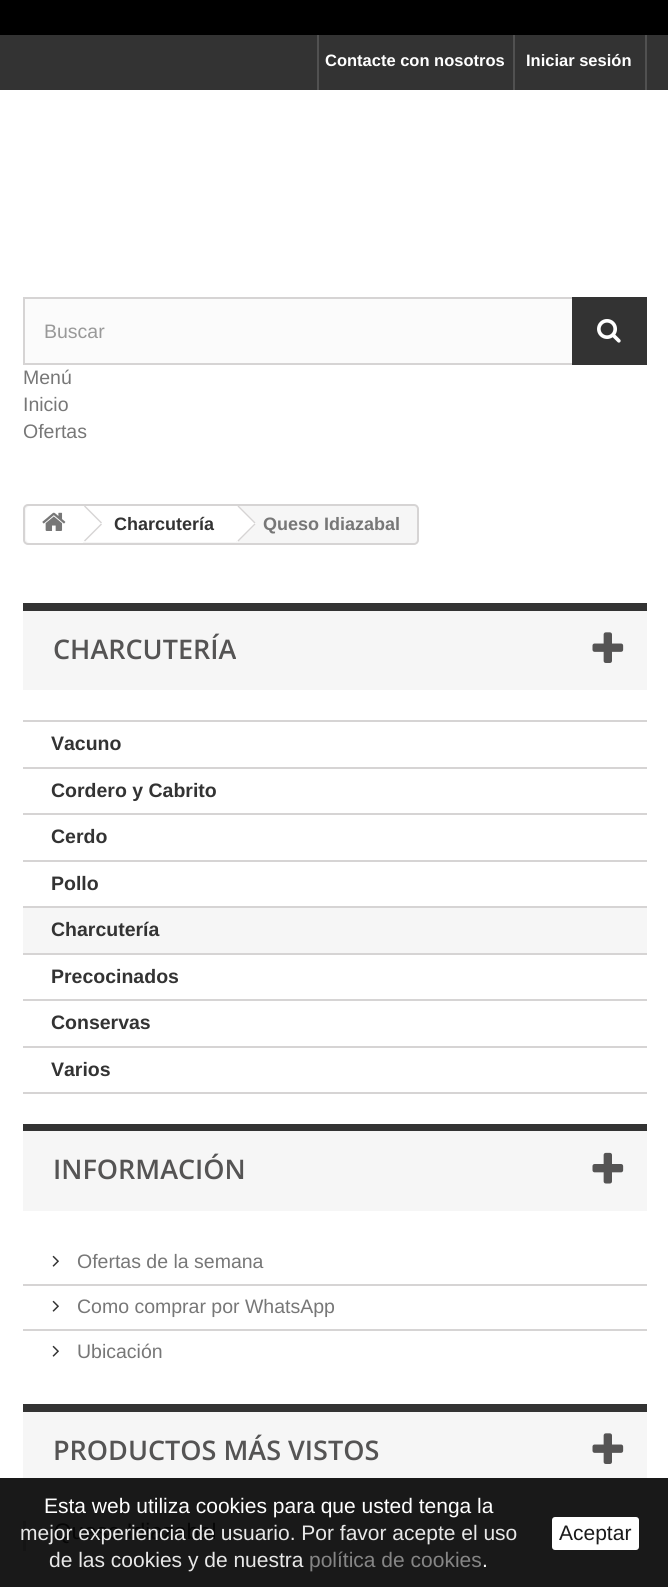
import math
import cairocffi as cairo

surface = cairo.ImageSurface(cairo.FORMAT_RGB24, 668, 1587)
ctx = cairo.Context(surface)
options = cairo.FontOptions()
options.set_hint_metrics(cairo.HINT_METRICS_OFF)
options.set_hint_style(cairo.HINT_STYLE_NONE)
ctx.set_font_options(options)
ctx.set_miter_limit(4)


def rgb(r, g, b):
    ctx.set_source_rgb(r / 255, g / 255, b / 255)


def face(family, size, italic, bold):
    ctx.select_font_face(family, cairo.FONT_SLANT_ITALIC if italic else cairo.FONT_SLANT_NORMAL, cairo.FONT_WEIGHT_BOLD if bold else cairo.FONT_WEIGHT_NORMAL)
    ctx.set_font_size(size)


def label(x, y, s):
    ctx.move_to(x, y)
    ctx.show_text(s)


def rect(x, y, w, h):
    ctx.rectangle(x, y, w, h)
    ctx.fill()


def rrect(x, y, w, h, r):
    ctx.new_sub_path()
    for i, (u, v) in enumerate([(x + w - r, y + h - r), (x + r, y + h - r), (x + r, y + r), (x + w - r, y + r)]):
        ctx.arc(u, v, r, i * math.pi / 2, (i + 1) * math.pi / 2)
    ctx.close_path()


def image(path, x, y, w, h):
    ctx.save()
    ctx.set_source_surface(cairo.ImageSurface.create_from_png(path), x, y)
    ctx.rectangle(x, y, w, h)
    ctx.fill()
    ctx.restore()


rgb(255, 255, 255)
ctx.paint()
rgb(25, 25, 25)
rect(0, 1478, 668, 109)
rgb(0, 0, 0)
rect(0, 0, 668, 35)
rgb(51, 51, 51)
rect(0, 35, 668, 55)
rgb(81, 81, 81)
rect(317, 35, 2, 55)
face('Liberation Sans', 16.5, 0, 1)
rgb(255, 255, 255)
label(325, 66, 'Contacte con nosotros')
rgb(81, 81, 81)
rect(645, 35, 2, 55)
rect(513, 35, 2, 55)
rgb(255, 255, 255)
label(526, 66, 'Iniciar sesión')
rgb(251, 251, 251)
rect(25, 299, 547, 64)
ctx.rectangle(24, 298, 622, 66)
rgb(214, 212, 212)
ctx.stroke()
face('Liberation Sans', 19.5, 0, 0)
rgb(153, 153, 153)
label(44, 338, 'Buscar')
rgb(51, 51, 51)
rect(572, 297, 75, 68)
image('image0.png', 597, 319, 24, 24)
rgb(119, 119, 119)
label(23, 384, 'Menú')
label(23, 411, 'Inicio')
label(23, 438, 'Ofertas')
rgb(246, 246, 246)
rrect(24, 505, 394, 39, 4)
ctx.fill_preserve()
rgb(214, 212, 212)
ctx.stroke()
rgb(255, 255, 255)
ctx.new_path()
ctx.move_to(31, 506)
ctx.line_to(83, 506)
ctx.line_to(83, 543)
ctx.line_to(31, 543)
ctx.curve_to(28, 543, 26, 541, 26, 538)
ctx.line_to(26, 511)
ctx.curve_to(26, 508, 28, 506, 31, 506)
ctx.close_path()
ctx.fill()
image('image1.png', 42, 512, 24, 19)
rect(83, 506, 153, 36)
rgb(214, 212, 212)
ctx.new_path()
ctx.move_to(85, 505.5)
ctx.line_to(102, 522.5)
ctx.line_to(101, 523.5)
ctx.line_to(84, 506.5)
ctx.close_path()
ctx.fill()
ctx.new_path()
ctx.move_to(101, 523.5)
ctx.line_to(102, 524.5)
ctx.line_to(85, 541.5)
ctx.line_to(84, 540.5)
ctx.close_path()
ctx.fill()
face('Liberation Sans', 18, 0, 1)
rgb(51, 51, 51)
label(114, 530, 'Charcutería')
rgb(255, 255, 255)
ctx.new_path()
ctx.move_to(239.5, 506.5)
ctx.line_to(239, 506)
ctx.line_to(236, 506)
ctx.line_to(235.5, 506.5)
ctx.line_to(220.5, 521.5)
ctx.curve_to(219.5, 522.5, 219.5, 524.5, 220.5, 526)
ctx.line_to(235.5, 540.5)
ctx.curve_to(236.5, 542, 238.5, 542, 239.5, 540.5)
ctx.line_to(254.5, 526)
ctx.curve_to(255.5, 524.5, 255.5, 522.5, 254.5, 521.5)
ctx.close_path()
ctx.fill()
rgb(214, 212, 212)
ctx.new_path()
ctx.move_to(238.5, 505.5)
ctx.line_to(255.5, 522.5)
ctx.line_to(254.5, 523.5)
ctx.line_to(237.5, 506.5)
ctx.close_path()
ctx.fill()
ctx.new_path()
ctx.move_to(254.5, 523.5)
ctx.line_to(255.5, 524.5)
ctx.line_to(238.5, 541.5)
ctx.line_to(237.5, 540.5)
ctx.close_path()
ctx.fill()
rgb(119, 119, 119)
label(263, 530, 'Queso Idiazabal')
rgb(246, 246, 246)
rect(23, 611, 624, 79)
rgb(51, 51, 51)
rect(23, 603, 624, 8)
face('Open Sans SemiBold', 27, 0, 0)
rgb(85, 84, 84)
label(53, 659, 'CHARCUTERÍA')
image('image2.png', 592, 632, 32, 31)
rgb(214, 212, 212)
rect(23, 720, 624, 2)
rect(23, 767, 624, 2)
face('Liberation Sans', 19.5, 0, 1)
rgb(51, 51, 51)
label(51, 750, 'Vacuno')
rgb(214, 212, 212)
rect(23, 813, 624, 2)
rgb(51, 51, 51)
label(51, 797, 'Cordero y Cabrito')
rgb(214, 212, 212)
rect(23, 860, 624, 2)
rgb(51, 51, 51)
label(51, 843, 'Cerdo')
rgb(214, 212, 212)
rect(23, 906, 624, 2)
rgb(51, 51, 51)
label(51, 890, 'Pollo')
rgb(246, 246, 246)
rect(23, 908, 624, 45)
rgb(214, 212, 212)
rect(23, 953, 624, 2)
rgb(51, 51, 51)
label(51, 936, 'Charcutería')
rgb(214, 212, 212)
rect(23, 999, 624, 2)
rgb(51, 51, 51)
label(51, 983, 'Precocinados')
rgb(214, 212, 212)
rect(23, 1046, 624, 2)
rgb(51, 51, 51)
label(51, 1029, 'Conservas')
rgb(214, 212, 212)
rect(23, 1092, 624, 2)
rgb(51, 51, 51)
label(51, 1076, 'Varios')
rgb(246, 246, 246)
rect(23, 1131, 624, 80)
rgb(51, 51, 51)
rect(23, 1124, 624, 7)
face('Open Sans SemiBold', 27, 0, 0)
rgb(85, 84, 84)
label(53, 1179, 'INFORMACIÓN')
image('image3.png', 592, 1152, 32, 32)
image('image4.png', 52, 1255, 7, 12)
face('Liberation Sans', 19.5, 0, 0)
rgb(119, 119, 119)
label(77, 1268, 'Ofertas de la semana')
rgb(214, 212, 212)
rect(23, 1284, 624, 2)
image('image4.png', 52, 1300, 7, 12)
rgb(119, 119, 119)
label(77, 1313, 'Como comprar por WhatsApp')
rgb(214, 212, 212)
rect(23, 1329, 624, 2)
image('image4.png', 52, 1345, 7, 12)
rgb(119, 119, 119)
label(77, 1358, 'Ubicación')
rgb(246, 246, 246)
rect(23, 1412, 624, 66)
rgb(51, 51, 51)
rect(23, 1404, 624, 8)
face('Open Sans SemiBold', 27, 0, 0)
rgb(85, 84, 84)
label(53, 1460, 'PRODUCTOS MÁS VISTOS')
image('image2.png', 592, 1433, 32, 31)
rgb(21, 21, 21)
rect(23, 1521, 3, 30)
face('Liberation Sans', 22.5, 0, 0)
rgb(6, 6, 6)
label(54, 1539, 'Queso Idiazabal')
face('Liberation Sans', 21, 0, 0)
rgb(255, 255, 255)
label(44, 1513, 'Esta web utiliza cookies para que usted tenga la')
rgb(232, 232, 232)
label(20, 1540, 'mejor experiencia de usuario. Por favor acepte el uso')
label(49, 1567, 'de las cookies y de nuestra')
rgb(133, 133, 133)
label(309, 1567, 'política de cookies')
rgb(255, 255, 255)
label(482, 1567, '.')
rrect(552, 1517, 87, 33, 3)
ctx.fill()
rgb(26, 26, 26)
label(559, 1540, 'Aceptar')
surface.write_to_png('render.png')
